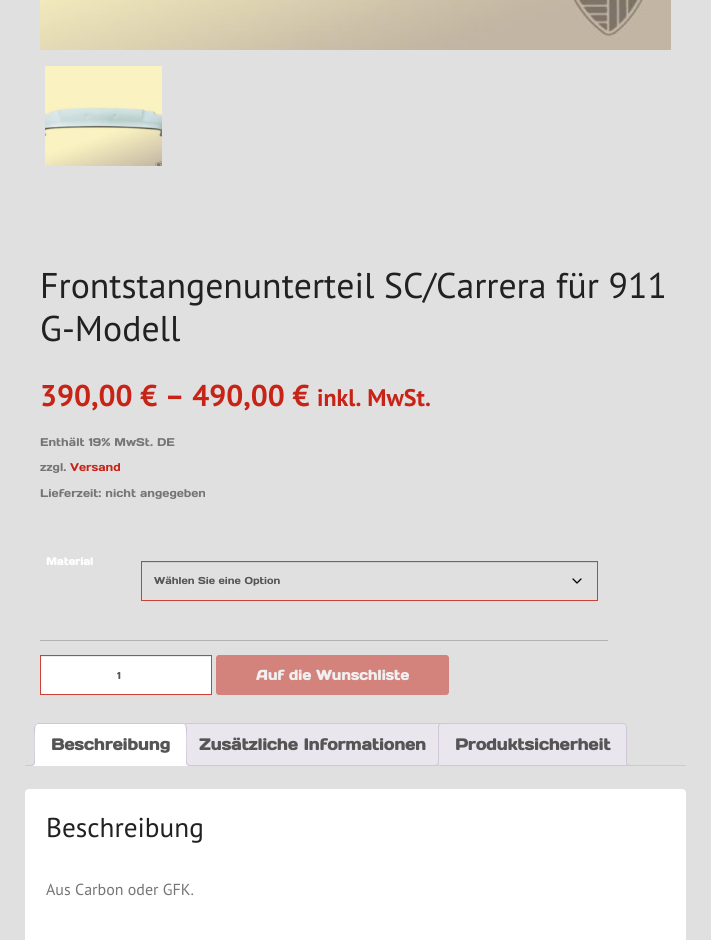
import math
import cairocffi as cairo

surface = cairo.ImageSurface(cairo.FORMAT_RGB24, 711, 940)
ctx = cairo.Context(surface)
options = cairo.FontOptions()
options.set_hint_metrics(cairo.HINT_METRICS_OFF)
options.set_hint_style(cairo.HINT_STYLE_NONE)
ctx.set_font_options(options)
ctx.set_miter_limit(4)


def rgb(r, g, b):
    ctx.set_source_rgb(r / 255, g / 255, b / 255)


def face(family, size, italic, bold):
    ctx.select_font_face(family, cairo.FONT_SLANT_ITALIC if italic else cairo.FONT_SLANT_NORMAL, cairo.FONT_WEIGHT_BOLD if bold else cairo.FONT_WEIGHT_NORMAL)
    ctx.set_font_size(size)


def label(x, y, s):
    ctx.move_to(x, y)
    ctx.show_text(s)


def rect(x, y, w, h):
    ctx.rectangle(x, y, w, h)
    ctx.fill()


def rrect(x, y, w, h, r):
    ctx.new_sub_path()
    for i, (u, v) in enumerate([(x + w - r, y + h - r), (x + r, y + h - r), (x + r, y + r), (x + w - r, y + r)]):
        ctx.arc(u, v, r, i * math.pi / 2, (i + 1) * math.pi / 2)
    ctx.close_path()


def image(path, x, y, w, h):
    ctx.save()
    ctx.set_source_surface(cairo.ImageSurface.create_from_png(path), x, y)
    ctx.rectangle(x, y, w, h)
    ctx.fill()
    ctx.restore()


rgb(224, 224, 224)
ctx.paint()
image('image0.png', 40, 0, 631, 50)
image('image1.png', 45, 66, 117, 100)
face('PT Sans', 35.75, 0, 0)
rgb(33, 33, 33)
label(40, 298, 'Frontstangenunterteil SC/Carrera für 911')
label(40, 341, 'G-Modell')
face('PT Sans', 30, 0, 1)
rgb(199, 35, 23)
label(40, 406, '390,00 € – 490,00 €')
face('PT Sans', 24, 0, 1)
label(317, 406, 'inkl. MwSt.')
face('Days One', 11.25, 0, 0)
rgb(117, 117, 117)
label(40, 446, 'Enthält 19% MwSt. DE')
label(40, 471, 'zzgl.')
rgb(199, 35, 23)
label(70, 471, 'Versand')
rgb(117, 117, 117)
label(40, 497, 'Lieferzeit: nicht angegeben')
rgb(179, 179, 179)
rect(40, 640, 568, 1)
face('Days One', 10.5, 0, 1)
rgb(255, 255, 255)
label(46, 565, 'Material')
ctx.new_path()
ctx.move_to(573, 579)
ctx.line_to(577, 583)
ctx.line_to(581, 579)
rgb(0, 0, 0)
ctx.set_line_width(1.3)
ctx.set_line_cap(cairo.LINE_CAP_ROUND)
ctx.set_line_join(cairo.LINE_JOIN_ROUND)
ctx.stroke()
rgb(207, 207, 207)
rect(142, 562, 455, 1)
ctx.rectangle(141.5, 561.5, 456, 39)
rgb(206, 64, 53)
ctx.set_line_width(1)
ctx.set_line_cap(cairo.LINE_CAP_BUTT)
ctx.set_line_join(cairo.LINE_JOIN_MITER)
ctx.stroke()
face('Days One', 10, 0, 0)
rgb(85, 85, 85)
label(154, 584, 'Wählen Sie eine Option')
rgb(255, 255, 255)
rect(41, 657, 170, 37)
rgb(236, 236, 236)
rect(41, 656, 170, 1)
ctx.rectangle(40.5, 655.5, 171, 39)
rgb(206, 64, 53)
ctx.stroke()
rgb(85, 85, 85)
label(117, 679, '1')
rgb(212, 130, 124)
rrect(216, 655, 233, 40, 3)
ctx.fill()
face('Days One', 14, 0, 1)
rgb(240, 240, 240)
label(256, 680, 'Auf die Wunschliste')
rgb(233, 230, 237)
ctx.new_path()
ctx.move_to(186, 723.5)
ctx.line_to(439, 723.5)
ctx.curve_to(441, 723.5, 442.5, 725, 442.5, 727)
ctx.line_to(442.5, 765.5)
ctx.line_to(182.5, 765.5)
ctx.line_to(182.5, 727)
ctx.curve_to(182.5, 725, 184, 723.5, 186, 723.5)
ctx.close_path()
ctx.fill_preserve()
rgb(207, 200, 216)
ctx.stroke()
rgb(233, 230, 237)
ctx.new_path()
ctx.move_to(442, 723.5)
ctx.line_to(623, 723.5)
ctx.curve_to(625, 723.5, 626.5, 725, 626.5, 727)
ctx.line_to(626.5, 765.5)
ctx.line_to(438.5, 765.5)
ctx.line_to(438.5, 727)
ctx.curve_to(438.5, 725, 440, 723.5, 442, 723.5)
ctx.close_path()
ctx.fill_preserve()
rgb(207, 200, 216)
ctx.stroke()
ctx.save()
ctx.rectangle(25, 723, 661, 43)
ctx.clip()
rgb(233, 230, 237)
ctx.new_path()
ctx.move_to(436, 766)
ctx.line_to(436, 768)
ctx.curve_to(439.5, 768, 441, 766.5, 441, 763)
ctx.line_to(439, 763)
ctx.curve_to(438.5, 764.5, 437.5, 765.5, 436, 766)
ctx.close_path()
ctx.fill()
ctx.restore()
ctx.set_fill_rule(cairo.FILL_RULE_EVEN_ODD)
ctx.new_path()
ctx.move_to(434, 761)
ctx.line_to(439, 761)
ctx.curve_to(439, 764.5, 437.5, 766, 434, 766)
ctx.close_path()
ctx.move_to(434, 761)
ctx.line_to(438, 761)
ctx.curve_to(438, 764, 437, 765, 434, 765)
ctx.close_path()
ctx.fill()
ctx.save()
ctx.set_fill_rule(cairo.FILL_RULE_WINDING)
ctx.rectangle(25, 723, 661, 43)
ctx.clip()
rgb(233, 230, 237)
ctx.new_path()
ctx.move_to(624, 763)
ctx.curve_to(624, 766.5, 625.5, 768, 629, 768)
ctx.line_to(629, 766)
ctx.curve_to(627.5, 765.5, 626.5, 764.5, 626, 763)
ctx.close_path()
ctx.fill()
ctx.restore()
ctx.new_path()
ctx.move_to(626, 761)
ctx.line_to(631, 761)
ctx.line_to(631, 766)
ctx.curve_to(628.5, 766, 626, 765, 626, 762)
ctx.close_path()
ctx.move_to(627, 761)
ctx.line_to(631, 761)
ctx.line_to(631, 765)
ctx.curve_to(629, 765, 627, 764.5, 627, 762)
ctx.close_path()
ctx.fill()
rect(25, 765, 661, 1)
rgb(255, 255, 255)
ctx.new_path()
ctx.move_to(38, 723)
ctx.line_to(183, 723)
ctx.curve_to(185, 723, 187, 725, 187, 727)
ctx.line_to(187, 766)
ctx.line_to(34, 766)
ctx.line_to(34, 727)
ctx.curve_to(34, 725, 36, 723, 38, 723)
ctx.close_path()
ctx.fill()
rgb(207, 200, 216)
ctx.set_fill_rule(cairo.FILL_RULE_WINDING)
ctx.new_path()
ctx.move_to(38, 723)
ctx.line_to(35, 724)
ctx.line_to(36, 725)
ctx.line_to(38, 724)
ctx.line_to(183, 724)
ctx.line_to(185, 725)
ctx.line_to(186, 724)
ctx.line_to(183, 723)
ctx.close_path()
ctx.fill()
ctx.new_path()
ctx.move_to(187, 766)
ctx.line_to(187, 727)
ctx.curve_to(187, 726, 186, 725, 186, 724)
ctx.line_to(185, 725)
ctx.curve_to(187, 727, 186, 760, 186, 765)
ctx.close_path()
ctx.fill()
rgb(255, 255, 255)
ctx.new_path()
ctx.move_to(187, 766)
ctx.line_to(186, 765)
ctx.line_to(35, 765)
ctx.line_to(34, 766)
ctx.close_path()
ctx.fill()
rgb(207, 200, 216)
ctx.new_path()
ctx.move_to(34, 766)
ctx.line_to(35, 765)
ctx.curve_to(35, 760, 34, 727, 36, 725)
ctx.line_to(35, 724)
ctx.line_to(34, 727)
ctx.close_path()
ctx.fill()
face('Days One', 16, 0, 1)
rgb(85, 85, 85)
label(51, 750, 'Beschreibung')
ctx.save()
ctx.rectangle(25, 723, 661, 43)
ctx.clip()
rgb(255, 255, 255)
ctx.new_path()
ctx.move_to(32, 766)
ctx.line_to(32, 768)
ctx.curve_to(35.5, 768, 37, 766.5, 37, 763)
ctx.line_to(35, 763)
ctx.curve_to(34.5, 764.5, 33.5, 765.5, 32, 766)
ctx.close_path()
ctx.fill()
ctx.restore()
rgb(207, 200, 216)
ctx.set_fill_rule(cairo.FILL_RULE_EVEN_ODD)
ctx.new_path()
ctx.move_to(30, 761)
ctx.line_to(35, 761)
ctx.curve_to(35, 764.5, 33.5, 766, 30, 766)
ctx.close_path()
ctx.move_to(30, 761)
ctx.line_to(34, 761)
ctx.curve_to(34, 764, 33, 765, 30, 765)
ctx.close_path()
ctx.fill()
ctx.save()
ctx.set_fill_rule(cairo.FILL_RULE_WINDING)
ctx.rectangle(25, 723, 661, 43)
ctx.clip()
rgb(255, 255, 255)
ctx.new_path()
ctx.move_to(184, 763)
ctx.curve_to(184, 766.5, 185.5, 768, 189, 768)
ctx.line_to(189, 766)
ctx.curve_to(187.5, 765.5, 186.5, 764.5, 186, 763)
ctx.close_path()
ctx.fill()
ctx.restore()
ctx.new_path()
ctx.move_to(186, 761)
ctx.line_to(191, 761)
ctx.line_to(191, 766)
ctx.curve_to(188.5, 766, 186, 765, 186, 762)
ctx.close_path()
ctx.move_to(187, 761)
ctx.line_to(191, 761)
ctx.line_to(191, 765)
ctx.curve_to(189, 765, 187, 764.5, 187, 762)
ctx.close_path()
ctx.fill()
rgb(85, 85, 85)
label(199, 750, 'Zusätzliche Informationen')
label(455, 750, 'Produktsicherheit')
rgb(255, 255, 255)
rrect(25, 789, 661, 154, 4)
ctx.fill()
face('PT Sans', 27.25, 0, 0)
rgb(33, 33, 33)
label(46, 837, 'Beschreibung')
face('PT Sans', 16, 0, 0)
rgb(117, 117, 117)
label(46, 895, 'Aus Carbon oder GFK.')
surface.write_to_png('render.png')
